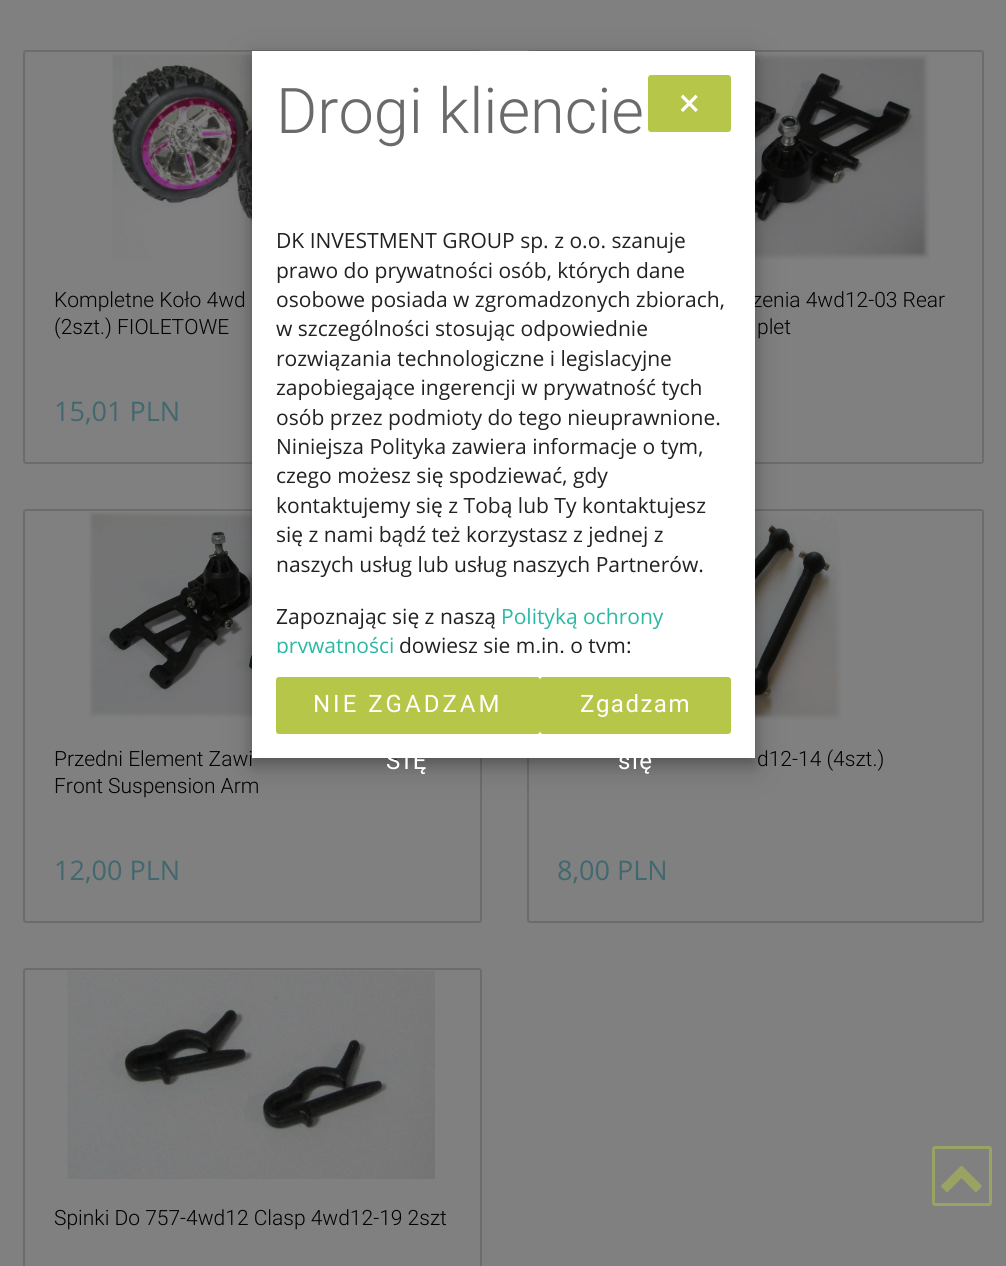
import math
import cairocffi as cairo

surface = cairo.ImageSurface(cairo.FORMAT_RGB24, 1006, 1266)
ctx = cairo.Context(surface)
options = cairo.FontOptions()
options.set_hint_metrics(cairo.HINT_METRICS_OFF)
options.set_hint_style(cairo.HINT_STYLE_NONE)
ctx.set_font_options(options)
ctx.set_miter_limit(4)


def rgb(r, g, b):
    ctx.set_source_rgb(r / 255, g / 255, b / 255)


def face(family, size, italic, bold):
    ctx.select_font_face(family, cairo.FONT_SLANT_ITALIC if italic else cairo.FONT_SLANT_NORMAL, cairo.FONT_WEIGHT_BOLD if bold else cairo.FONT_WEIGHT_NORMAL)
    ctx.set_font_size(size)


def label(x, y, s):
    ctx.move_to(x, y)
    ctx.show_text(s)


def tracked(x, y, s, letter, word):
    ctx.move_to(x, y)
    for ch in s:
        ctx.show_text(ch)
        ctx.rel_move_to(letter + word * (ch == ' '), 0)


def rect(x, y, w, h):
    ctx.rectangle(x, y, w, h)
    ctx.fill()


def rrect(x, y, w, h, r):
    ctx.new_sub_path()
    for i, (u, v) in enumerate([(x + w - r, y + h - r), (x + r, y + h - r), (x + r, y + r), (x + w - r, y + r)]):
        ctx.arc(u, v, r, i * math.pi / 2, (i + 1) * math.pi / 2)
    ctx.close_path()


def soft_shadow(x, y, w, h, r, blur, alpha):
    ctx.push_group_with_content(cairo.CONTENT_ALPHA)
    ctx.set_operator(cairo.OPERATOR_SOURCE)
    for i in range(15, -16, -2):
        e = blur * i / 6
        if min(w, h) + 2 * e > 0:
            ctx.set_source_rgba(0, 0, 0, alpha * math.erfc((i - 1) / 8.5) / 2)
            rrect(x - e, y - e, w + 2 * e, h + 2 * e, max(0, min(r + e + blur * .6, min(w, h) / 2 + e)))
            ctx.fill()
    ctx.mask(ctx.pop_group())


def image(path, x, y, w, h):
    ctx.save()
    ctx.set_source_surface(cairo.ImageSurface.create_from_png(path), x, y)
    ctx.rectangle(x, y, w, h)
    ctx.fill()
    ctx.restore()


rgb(128, 128, 128)
ctx.paint()
rrect(24, 51, 457, 412, 2)
rgb(108, 108, 108)
ctx.stroke()
image('image0.png', 112, 53, 140, 206)
rrect(528, 51, 455, 412, 2)
ctx.stroke()
image('image1.png', 755, 54, 175, 206)
rrect(24, 510, 457, 412, 2)
ctx.stroke()
image('image2.png', 89, 512, 163, 206)
rrect(528, 510, 455, 412, 2)
ctx.stroke()
image('image3.png', 755, 517, 86, 203)
rgb(0, 0, 0)
soft_shadow(252, 60, 503, 707, 0, 15, 0.19)
soft_shadow(252, 57, 503, 707, 0, 6, 0.2)
face('Roboto Light', 21, 0, 0)
rgb(0, 0, 0)
label(752, 307, 'zenia 4wd12-03 Rear')
rgb(255, 255, 255)
rect(252, 51, 503, 707)
face('Roboto Light', 63, 0, 0)
rgb(106, 106, 106)
label(276, 133, 'Drogi kliencie')
rgb(181, 198, 72)
rrect(648, 75, 83, 57, 3)
ctx.fill()
face('Roboto', 39, 0, 0)
rgb(255, 255, 255)
tracked(679, 116, '×', 1.5, 0)
face('Open Sans', 21, 0, 0)
rgb(34, 34, 34)
label(276, 248, 'DK INVESTMENT GROUP sp. z o.o. szanuje')
label(276, 278, 'prawo do prywatności osób, których dane')
label(276, 307, 'osobowe posiada w zgromadzonych zbiorach,')
label(276, 336, 'w szczególności stosując odpowiednie')
label(276, 366, 'rozwiązania technologiczne i legislacyjne')
label(276, 395, 'zapobiegające ingerencji w prywatność tych')
label(276, 425, 'osób przez podmioty do tego nieuprawnione.')
label(276, 454, 'Niniejsza Polityka zawiera informacje o tym,')
label(276, 483, 'czego możesz się spodziewać, gdy')
label(276, 513, 'kontaktujemy się z Tobą lub Ty kontaktujesz')
label(276, 542, 'się z nami bądź też korzystasz z jednej z')
label(276, 572, 'naszych usług lub usług naszych Partnerów.')
label(276, 624, 'Zapoznając się z naszą')
rgb(42, 185, 163)
label(501, 624, 'Polityką ochrony')
ctx.save()
ctx.rectangle(252, 203, 503, 450)
ctx.clip()
label(276, 653, 'prywatności')
rgb(34, 34, 34)
label(399, 653, 'dowiesz się m.in. o tym:')
ctx.restore()
rgb(181, 198, 72)
rrect(276, 677, 264, 57, 3)
ctx.fill()
face('Roboto', 24, 0, 0)
rgb(255, 255, 255)
tracked(313, 712, 'NIE ZGADZAM', 3, 0)
face('Roboto Light', 21, 0, 0)
rgb(0, 0, 0)
label(391, 766, '-')
face('Roboto', 24, 0, 0)
rgb(255, 255, 255)
tracked(386, 769, 'SIĘ', 3, 0)
rgb(181, 198, 72)
rrect(540, 677, 191, 57, 3)
ctx.fill()
rgb(255, 255, 255)
tracked(580, 712, 'Zgadzam', 1.5, 0)
tracked(618, 769, 'się', 1.5, 0)
face('Roboto Light', 21, 0, 0)
rgb(0, 0, 0)
label(54, 307, 'Kompletne Koło 4wd')
label(54, 334, '(2szt.) FIOLETOWE')
face('Open Sans', 27, 0, 0)
rgb(65, 104, 110)
label(54, 421, '15,01 PLN')
face('Roboto Light', 21, 0, 0)
rgb(0, 0, 0)
label(757, 334, 'plet')
label(54, 766, 'Przedni Element Zawi')
label(54, 793, 'Front Suspension Arm')
face('Open Sans', 27, 0, 0)
rgb(65, 104, 110)
label(54, 880, '12,00 PLN')
face('Roboto Light', 21, 0, 0)
rgb(0, 0, 0)
label(757, 766, 'd12-14 (4szt.)')
face('Open Sans', 27, 0, 0)
rgb(65, 104, 110)
label(557, 880, '8,00 PLN')
rrect(24, 969, 457, 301, 2)
rgb(108, 108, 108)
ctx.stroke()
image('image4.png', 67, 970, 368, 209)
face('Roboto Light', 21, 0, 0)
rgb(0, 0, 0)
label(54, 1225, 'Spinki Do 757-4wd12 Clasp 4wd12-19 2szt')
rrect(933.5, 1147.5, 57, 57, 1.5)
rgb(154, 163, 100)
ctx.set_line_width(3)
ctx.stroke()
image('image5.png', 941, 1166, 41, 26)
surface.write_to_png('render.png')
